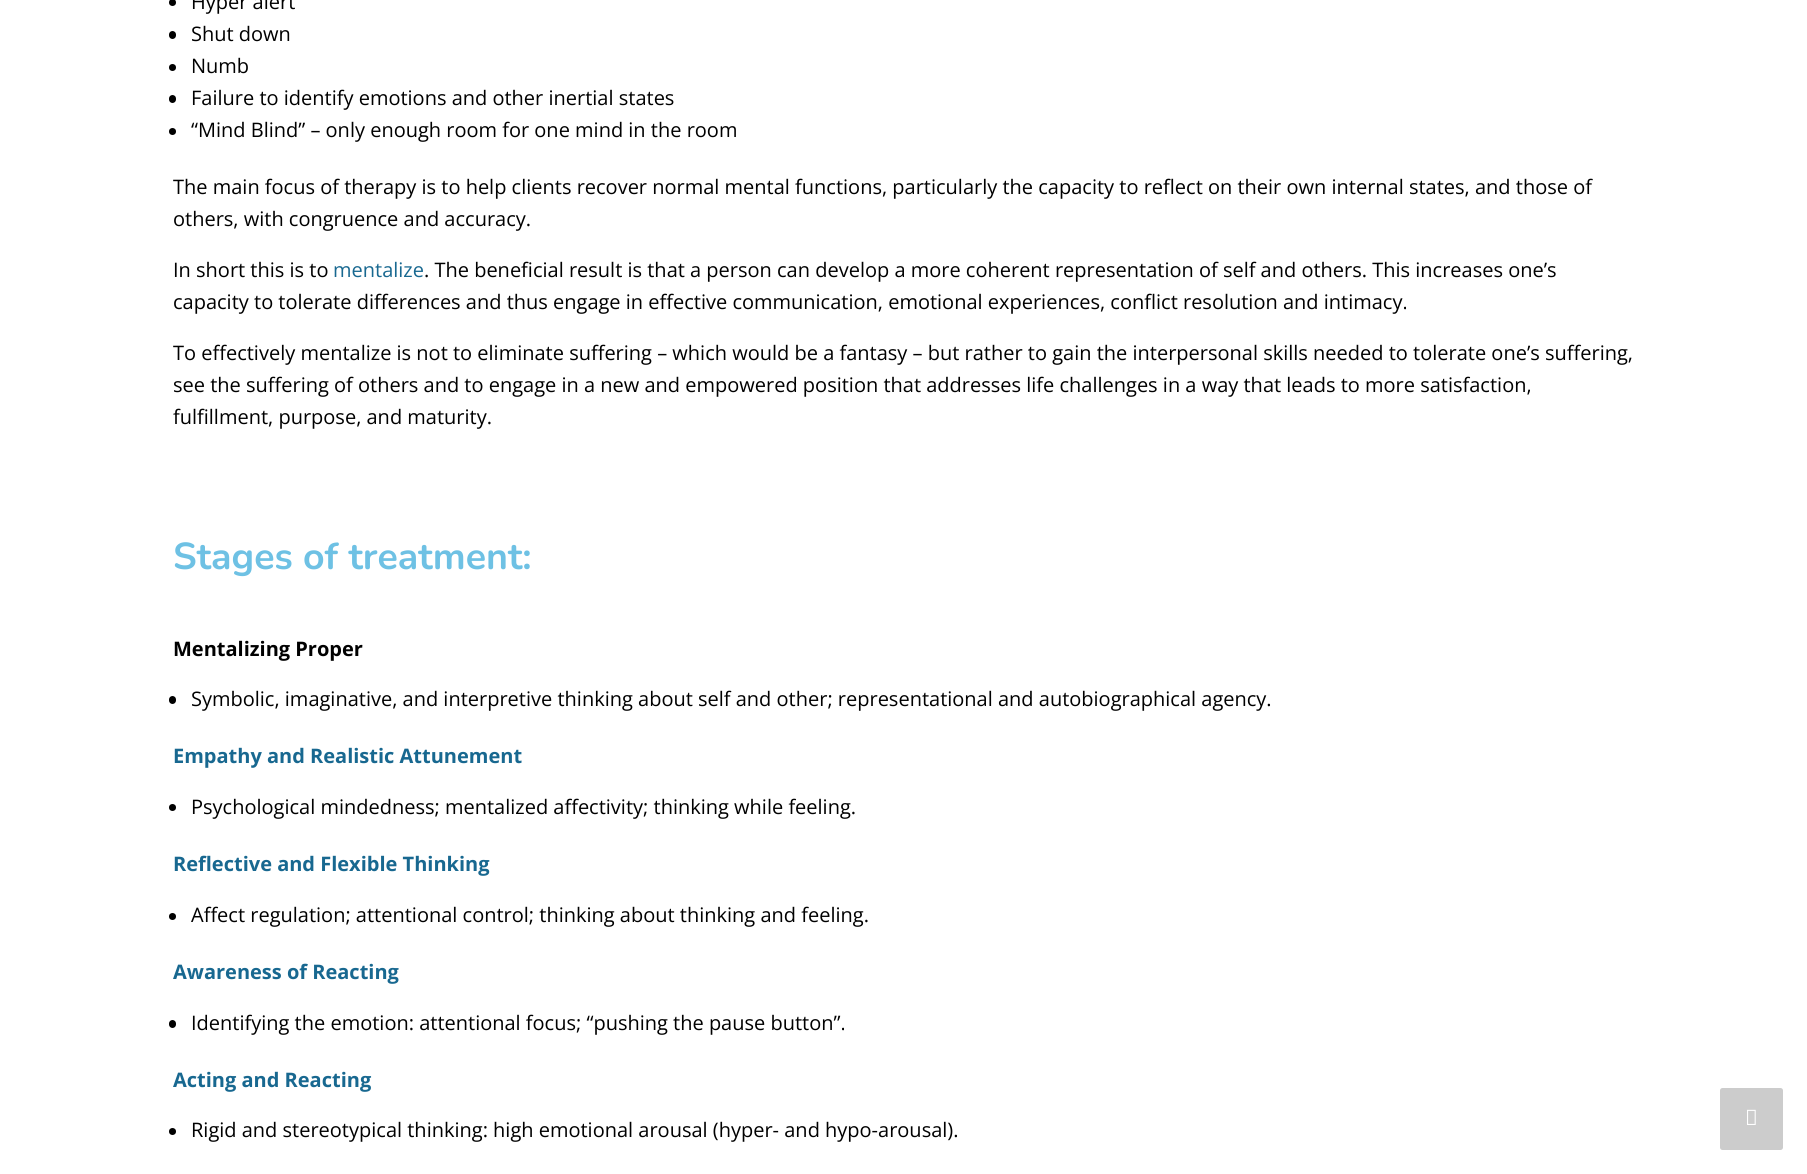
import math
import cairocffi as cairo

surface = cairo.ImageSurface(cairo.FORMAT_RGB24, 1807, 1174)
ctx = cairo.Context(surface)
options = cairo.FontOptions()
options.set_hint_metrics(cairo.HINT_METRICS_OFF)
options.set_hint_style(cairo.HINT_STYLE_NONE)
ctx.set_font_options(options)
ctx.set_miter_limit(4)


def rgb(r, g, b):
    ctx.set_source_rgb(r / 255, g / 255, b / 255)


def face(family, size, italic, bold):
    ctx.select_font_face(family, cairo.FONT_SLANT_ITALIC if italic else cairo.FONT_SLANT_NORMAL, cairo.FONT_WEIGHT_BOLD if bold else cairo.FONT_WEIGHT_NORMAL)
    ctx.set_font_size(size)


def label(x, y, s):
    ctx.move_to(x, y)
    ctx.show_text(s)


def rrect(x, y, w, h, r):
    ctx.new_sub_path()
    for i, (u, v) in enumerate([(x + w - r, y + h - r), (x + r, y + h - r), (x + r, y + r), (x + w - r, y + r)]):
        ctx.arc(u, v, r, i * math.pi / 2, (i + 1) * math.pi / 2)
    ctx.close_path()


def image(path, x, y, w, h):
    ctx.save()
    ctx.set_source_surface(cairo.ImageSurface.create_from_png(path), x, y)
    ctx.rectangle(x, y, w, h)
    ctx.fill()
    ctx.restore()


rgb(255, 255, 255)
ctx.paint()
rgb(0, 0, 0)
ctx.arc(172.5, 2.5, 3.5, 0, 2 * math.pi)
ctx.fill()
face('Open Sans', 20, 0, 0)
label(191, 9, 'Hyper alert')
rrect(169, 31, 7, 8, 3.5)
ctx.fill()
label(191, 41, 'Shut down')
ctx.new_path()
ctx.arc(172.5, 67.5, 3.5, 0, 2 * math.pi)
ctx.fill()
label(191, 73, 'Numb')
rrect(169, 95, 7, 8, 3.5)
ctx.fill()
label(191, 105, 'Failure to identify emotions and other inertial states')
ctx.new_path()
ctx.arc(172.5, 131.5, 3.5, 0, 2 * math.pi)
ctx.fill()
label(191, 137, '“Mind Blind” – only enough room for one mind in the room')
label(173, 194, 'The main focus of therapy is to help clients recover normal mental functions, particularly the capacity to reflect on their own internal states, and those of')
label(173, 226, 'others, with congruence and accuracy.')
label(173, 277, 'In short this is to')
rgb(24, 104, 144)
label(333, 277, 'mentalize')
rgb(0, 0, 0)
label(424, 277, '. The beneficial result is that a person can develop a more coherent representation of self and others. This increases one’s')
label(173, 309, 'capacity to tolerate differences and thus engage in effective communication, emotional experiences, conflict resolution and intimacy.')
label(173, 360, 'To effectively mentalize is not to eliminate suffering – which would be a fantasy – but rather to gain the interpersonal skills needed to tolerate one’s suffering,')
label(173, 392, 'see the suffering of others and to engage in a new and empowered position that addresses life challenges in a way that leads to more satisfaction,')
label(173, 424, 'fulfillment, purpose, and maturity.')
face('Nunito', 37.5, 0, 1)
rgb(110, 193, 228)
label(173, 569, 'Stages of treatment:')
face('Open Sans', 20, 0, 1)
rgb(0, 0, 0)
label(173, 656, 'Mentalizing Proper')
rrect(169, 696, 7, 8, 3.5)
ctx.fill()
face('Open Sans', 20, 0, 0)
label(191, 706, 'Symbolic, imaginative, and interpretive thinking about self and other; representational and autobiographical agency.')
face('Open Sans', 20, 0, 1)
rgb(24, 104, 144)
label(173, 763, 'Empathy and Realistic Attunement')
rgb(0, 0, 0)
ctx.new_path()
ctx.arc(172.5, 807.5, 3.5, 0, 2 * math.pi)
ctx.fill()
face('Open Sans', 20, 0, 0)
label(191, 814, 'Psychological mindedness; mentalized affectivity; thinking while feeling.')
face('Open Sans', 20, 0, 1)
rgb(24, 104, 144)
label(173, 871, 'Reflective and Flexible Thinking')
rgb(0, 0, 0)
ctx.new_path()
ctx.arc(172.5, 916.5, 3.5, 0, 2 * math.pi)
ctx.fill()
face('Open Sans', 20, 0, 0)
label(191, 922, 'Affect regulation; attentional control; thinking about thinking and feeling.')
face('Open Sans', 20, 0, 1)
rgb(24, 104, 144)
label(173, 979, 'Awareness of Reacting')
rgb(0, 0, 0)
rrect(169, 1020, 7, 8, 3.5)
ctx.fill()
face('Open Sans', 20, 0, 0)
label(191, 1030, 'Identifying the emotion: attentional focus; “pushing the pause button”.')
face('Open Sans', 20, 0, 1)
rgb(24, 104, 144)
label(173, 1087, 'Acting and Reacting')
rgb(0, 0, 0)
ctx.new_path()
ctx.arc(172.5, 1131.5, 3.5, 0, 2 * math.pi)
ctx.fill()
face('Open Sans', 20, 0, 0)
label(191, 1137, 'Rigid and stereotypical thinking: high emotional arousal (hyper- and hypo-arousal).')
rgb(204, 204, 204)
rrect(1720, 1088, 63, 62, 2.5)
ctx.fill()
image('image0.png', 1747, 1109, 9, 16)
surface.write_to_png('render.png')
